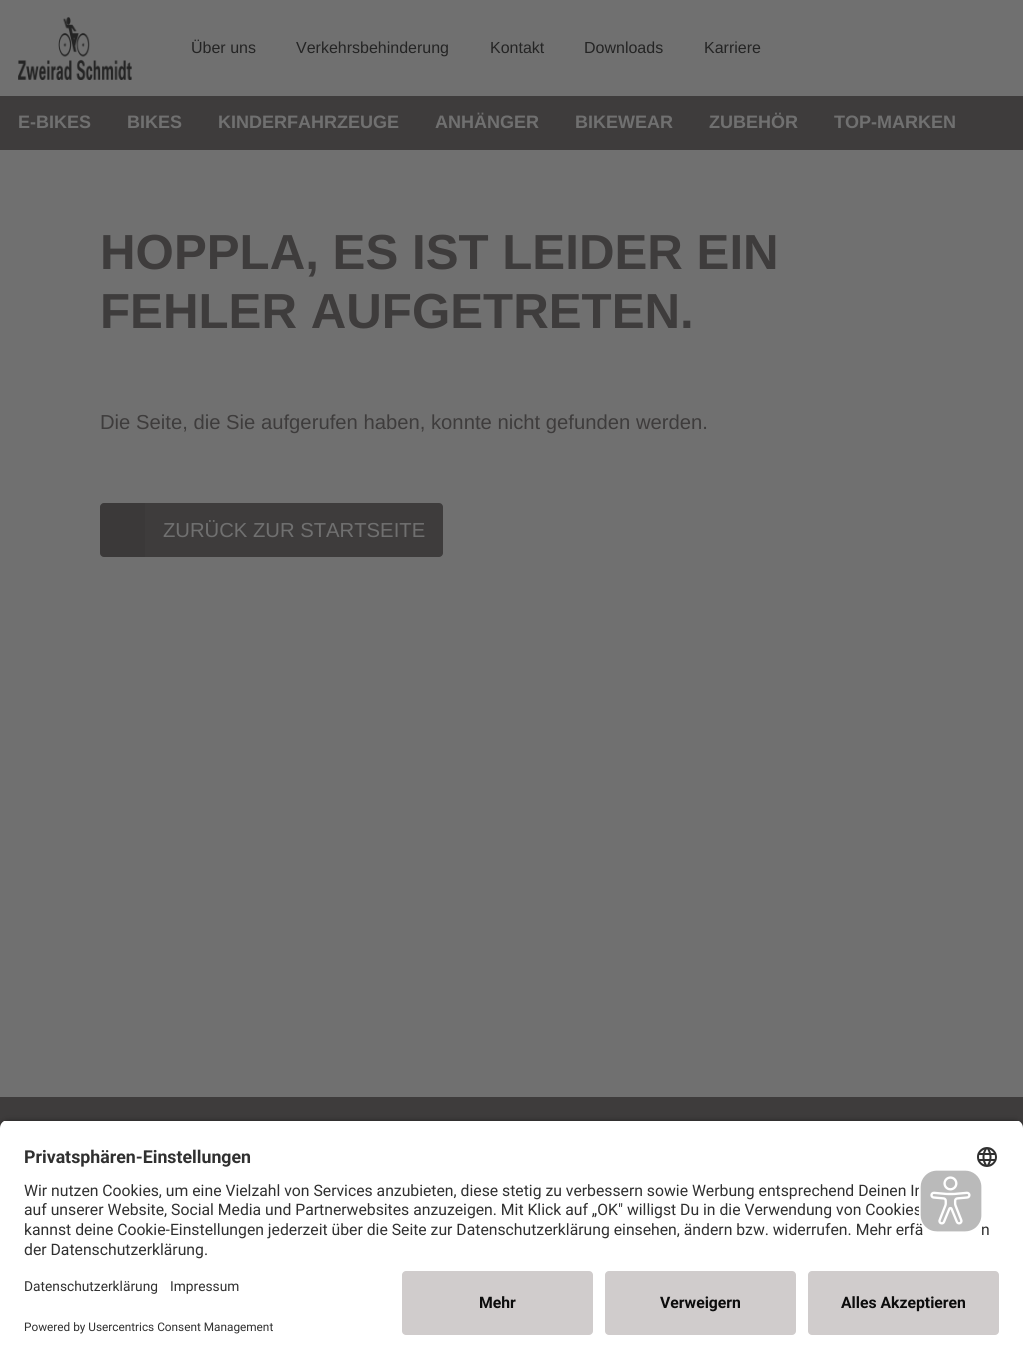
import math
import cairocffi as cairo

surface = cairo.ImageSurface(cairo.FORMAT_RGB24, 1023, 1359)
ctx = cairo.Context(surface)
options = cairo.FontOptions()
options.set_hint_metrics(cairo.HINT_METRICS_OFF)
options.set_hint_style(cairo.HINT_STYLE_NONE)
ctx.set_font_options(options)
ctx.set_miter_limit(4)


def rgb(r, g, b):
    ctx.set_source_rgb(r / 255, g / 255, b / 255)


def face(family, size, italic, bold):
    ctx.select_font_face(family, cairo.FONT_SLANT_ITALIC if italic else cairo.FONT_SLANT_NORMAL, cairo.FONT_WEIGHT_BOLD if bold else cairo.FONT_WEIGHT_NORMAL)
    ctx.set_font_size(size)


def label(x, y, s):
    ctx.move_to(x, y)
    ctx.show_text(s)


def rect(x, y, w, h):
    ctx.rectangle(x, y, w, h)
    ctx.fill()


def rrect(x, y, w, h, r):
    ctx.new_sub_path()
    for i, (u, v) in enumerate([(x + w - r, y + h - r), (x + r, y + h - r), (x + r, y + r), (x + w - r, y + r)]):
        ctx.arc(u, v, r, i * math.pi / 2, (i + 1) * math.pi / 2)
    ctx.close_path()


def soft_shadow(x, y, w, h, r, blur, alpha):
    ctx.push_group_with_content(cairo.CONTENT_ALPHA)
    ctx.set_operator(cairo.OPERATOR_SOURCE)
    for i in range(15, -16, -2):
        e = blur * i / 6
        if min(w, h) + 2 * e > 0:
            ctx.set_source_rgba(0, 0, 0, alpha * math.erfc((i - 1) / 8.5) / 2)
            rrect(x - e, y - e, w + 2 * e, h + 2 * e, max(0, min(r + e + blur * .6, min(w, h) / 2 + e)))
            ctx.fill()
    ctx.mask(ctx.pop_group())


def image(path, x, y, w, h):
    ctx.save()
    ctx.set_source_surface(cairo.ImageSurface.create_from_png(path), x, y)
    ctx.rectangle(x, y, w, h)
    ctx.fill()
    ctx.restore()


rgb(112, 112, 112)
ctx.paint()
image('image0.png', 18, 16, 114, 64)
face('Liberation Sans', 16, 0, 0)
rgb(36, 36, 36)
label(191, 53, 'Über uns')
label(296, 53, 'Verkehrsbehinderung')
label(490, 53, 'Kontakt')
label(584, 53, 'Downloads')
label(704, 53, 'Karriere')
rgb(62, 60, 60)
rect(0, 96, 1023, 54)
face('Liberation Sans', 18, 0, 1)
rgb(112, 112, 112)
label(18, 128, 'E-BIKES')
label(127, 128, 'BIKES')
label(218, 128, 'KINDERFAHRZEUGE')
label(435, 128, 'ANHÄNGER')
label(575, 128, 'BIKEWEAR')
label(709, 128, 'ZUBEHÖR')
label(834, 128, 'TOP-MARKEN')
face('Liberation Sans', 49.25, 0, 1)
rgb(62, 60, 60)
label(100, 269, 'HOPPLA, ES IST LEIDER EIN')
label(100, 328, 'FEHLER AUFGETRETEN.')
face('Liberation Sans', 20.25, 0, 0)
label(100, 429, 'Die Seite, die Sie aufgerufen haben, konnte nicht gefunden werden.')
rrect(100, 503, 343, 54, 4)
ctx.fill()
ctx.set_source_rgba(0.141, 0.141, 0.141, 0.1)
ctx.new_path()
ctx.move_to(104, 503)
ctx.line_to(145, 503)
ctx.line_to(145, 557)
ctx.line_to(104, 557)
ctx.curve_to(102, 557, 100, 555, 100, 553)
ctx.line_to(100, 507)
ctx.curve_to(100, 505, 102, 503, 104, 503)
ctx.close_path()
ctx.fill()
rgb(112, 112, 112)
label(163, 537, 'ZURÜCK ZUR STARTSEITE')
rgb(62, 60, 60)
rect(0, 1097, 1023, 31)
rgb(0, 0, 0)
soft_shadow(0, 1123, 1023, 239, 8, 3.5, 0.8)
ctx.save()
ctx.new_path()
ctx.move_to(8, 1120)
ctx.line_to(1015, 1120)
ctx.curve_to(1019.5, 1120, 1023, 1123.5, 1023, 1128)
ctx.line_to(1023, 1263)
ctx.line_to(0, 1263)
ctx.line_to(0, 1128)
ctx.curve_to(0, 1123.5, 3.5, 1120, 8, 1120)
ctx.close_path()
ctx.clip()
rgb(255, 255, 255)
rect(0, 1121, 1023, 142)
ctx.restore()
face('Roboto', 17.75, 0, 1)
rgb(48, 48, 48)
label(24, 1163, 'Privatsphären-Einstellungen')
image('image1.png', 977, 1147, 20, 20)
face('Roboto', 15.75, 0, 0)
label(24, 1196, 'Wir nutzen Cookies, um eine Vielzahl von Services anzubieten, diese stetig zu verbessern sowie Werbung entsprechend Deinen In')
label(24, 1215, 'auf unserer Website, Social Media und Partnerwebsites anzuzeigen. Mit Klick auf „OK" willigst Du in die Verwendung von Cookies')
label(24, 1235, 'kannst deine Cookie-Einstellungen jederzeit über die Seite zur Datenschutzerklärung einsehen, ändern bzw. widerrufen. Mehr erfä')
label(981, 1235, 'n')
label(24, 1255, 'der Datenschutzerklärung.')
rgb(255, 255, 255)
rect(0, 1263, 1023, 96)
face('Roboto', 13.75, 0, 0)
rgb(48, 48, 48)
label(24, 1291, 'Datenschutzerklärung')
label(170, 1291, 'Impressum')
face('Roboto', 11.8, 0, 0)
label(24, 1331, 'Powered by Usercentrics Consent Management')
rgb(208, 204, 204)
rrect(402, 1271, 191, 64, 4)
ctx.fill()
face('Roboto', 15.75, 0, 1)
rgb(12, 12, 12)
label(479, 1308, 'Mehr')
rgb(208, 204, 204)
rrect(605, 1271, 191, 64, 4)
ctx.fill()
rgb(12, 12, 12)
label(660, 1308, 'Verweigern')
rgb(208, 204, 204)
rrect(808, 1271, 191, 64, 4)
ctx.fill()
rgb(12, 12, 12)
label(841, 1308, 'Alles Akzeptieren')
image('image2.png', 919, 1170, 64, 63)
surface.write_to_png('render.png')
